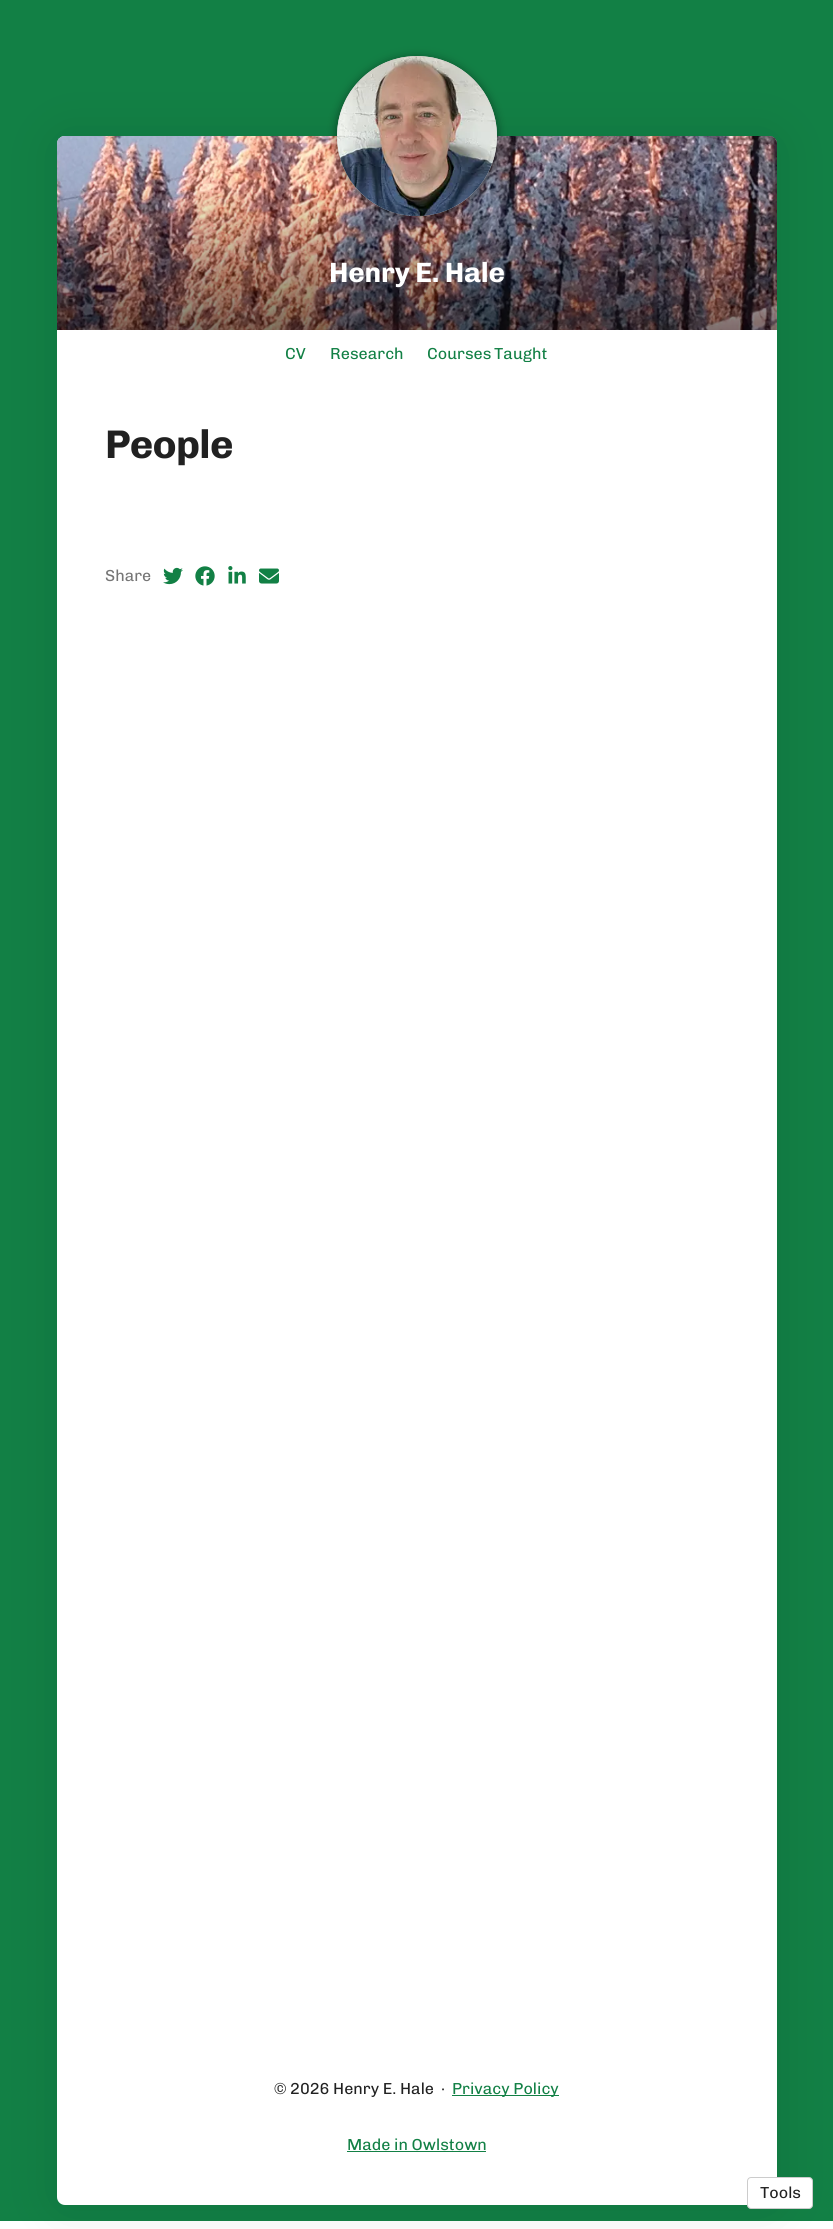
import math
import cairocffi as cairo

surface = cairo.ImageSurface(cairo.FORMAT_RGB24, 833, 2229)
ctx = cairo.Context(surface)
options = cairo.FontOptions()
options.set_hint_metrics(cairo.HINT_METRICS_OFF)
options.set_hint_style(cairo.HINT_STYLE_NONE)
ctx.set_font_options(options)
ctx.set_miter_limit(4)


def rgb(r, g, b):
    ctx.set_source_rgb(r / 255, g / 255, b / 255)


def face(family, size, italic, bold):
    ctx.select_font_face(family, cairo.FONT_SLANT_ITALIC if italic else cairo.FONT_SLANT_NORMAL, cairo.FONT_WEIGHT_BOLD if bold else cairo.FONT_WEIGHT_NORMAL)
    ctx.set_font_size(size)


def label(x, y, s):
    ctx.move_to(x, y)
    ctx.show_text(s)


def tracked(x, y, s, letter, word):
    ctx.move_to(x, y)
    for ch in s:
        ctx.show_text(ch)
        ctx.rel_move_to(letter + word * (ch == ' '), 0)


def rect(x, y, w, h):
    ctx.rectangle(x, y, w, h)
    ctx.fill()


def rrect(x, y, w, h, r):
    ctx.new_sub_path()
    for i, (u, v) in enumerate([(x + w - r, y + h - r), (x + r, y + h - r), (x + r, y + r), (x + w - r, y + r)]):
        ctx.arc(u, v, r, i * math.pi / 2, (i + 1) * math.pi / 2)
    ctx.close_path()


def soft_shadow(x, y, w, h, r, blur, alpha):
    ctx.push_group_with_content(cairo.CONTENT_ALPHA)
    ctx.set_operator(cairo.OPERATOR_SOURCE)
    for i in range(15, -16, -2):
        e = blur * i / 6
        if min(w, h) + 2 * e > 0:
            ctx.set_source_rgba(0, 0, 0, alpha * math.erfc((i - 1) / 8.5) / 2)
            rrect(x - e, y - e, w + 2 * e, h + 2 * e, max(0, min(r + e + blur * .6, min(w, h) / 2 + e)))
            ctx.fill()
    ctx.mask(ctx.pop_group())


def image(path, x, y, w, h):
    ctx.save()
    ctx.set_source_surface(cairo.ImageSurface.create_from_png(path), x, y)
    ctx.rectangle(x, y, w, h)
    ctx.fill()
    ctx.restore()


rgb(255, 255, 255)
ctx.paint()
rgb(18, 128, 69)
rect(0, 0, 833, 2221)
rgb(0, 0, 0)
soft_shadow(57, 138, 720, 2069, 8, 25, 0.1)
rgb(255, 255, 255)
rrect(57, 136, 720, 2069, 8)
ctx.fill()
image('image1.png', 57, 136, 720, 8)
image('image2.png', 57, 136, 720, 194)
gradient = cairo.LinearGradient(417, 136, 417, 330)
gradient.add_color_stop_rgba(0, 0, 0, 0, 0)
gradient.add_color_stop_rgba(0.25, 0, 0, 0, 0)
gradient.add_color_stop_rgba(1, 0, 0, 0, 0.5)
ctx.set_source(gradient)
rect(57, 191, 720, 139)
rgb(0, 0, 0)
soft_shadow(337, 58, 160, 160, 80, 5, 0.5)
rgb(204, 204, 204)
ctx.arc(417, 136, 80, 0, 2 * math.pi)
ctx.fill()
image('image0.png', 337, 56, 160, 160)
face('Chivo', 28, 0, 1)
rgb(255, 255, 255)
tracked(329, 282, 'Henry E. Hale', -0.25, 0)
face('Chivo', 16, 0, 0)
rgb(18, 128, 69)
label(285, 359, 'CV')
label(330, 359, 'Research')
tracked(427, 359, 'Courses Taught', 0, -1)
face('Chivo', 40, 0, 1)
rgb(33, 33, 33)
tracked(105, 458, 'People', -0.75, 0)
face('Chivo', 16, 0, 0)
rgb(117, 117, 117)
label(105, 581, 'Share')
image('image3.png', 163, 567, 20, 18)
image('image4.png', 195, 566, 20, 20)
image('image5.png', 228, 566, 18, 18)
image('image6.png', 259, 568, 20, 16)
rgb(33, 33, 33)
label(274, 2094, '© 2026 Henry E. Hale')
label(441, 2094, '·')
rgb(18, 128, 69)
rect(452, 2095, 107, 1)
label(452, 2094, 'Privacy Policy')
label(347, 2150, 'Made in Owlstown')
rect(347, 2151, 139, 1)
rgb(255, 255, 255)
rrect(747.5, 2177.5, 65, 31, 3.5)
ctx.fill_preserve()
rgb(204, 204, 204)
ctx.set_line_width(1)
ctx.stroke()
rgb(33, 33, 33)
label(760, 2198, 'Tools')
surface.write_to_png('render.png')
